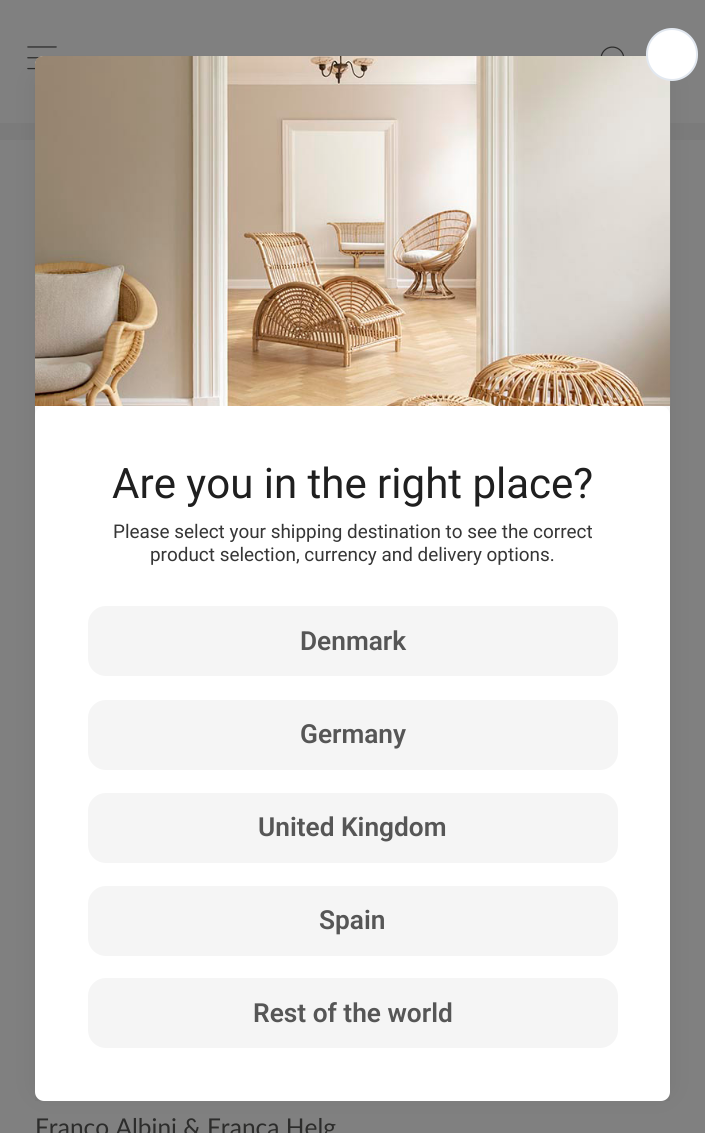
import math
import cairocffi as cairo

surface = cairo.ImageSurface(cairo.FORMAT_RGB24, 705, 1133)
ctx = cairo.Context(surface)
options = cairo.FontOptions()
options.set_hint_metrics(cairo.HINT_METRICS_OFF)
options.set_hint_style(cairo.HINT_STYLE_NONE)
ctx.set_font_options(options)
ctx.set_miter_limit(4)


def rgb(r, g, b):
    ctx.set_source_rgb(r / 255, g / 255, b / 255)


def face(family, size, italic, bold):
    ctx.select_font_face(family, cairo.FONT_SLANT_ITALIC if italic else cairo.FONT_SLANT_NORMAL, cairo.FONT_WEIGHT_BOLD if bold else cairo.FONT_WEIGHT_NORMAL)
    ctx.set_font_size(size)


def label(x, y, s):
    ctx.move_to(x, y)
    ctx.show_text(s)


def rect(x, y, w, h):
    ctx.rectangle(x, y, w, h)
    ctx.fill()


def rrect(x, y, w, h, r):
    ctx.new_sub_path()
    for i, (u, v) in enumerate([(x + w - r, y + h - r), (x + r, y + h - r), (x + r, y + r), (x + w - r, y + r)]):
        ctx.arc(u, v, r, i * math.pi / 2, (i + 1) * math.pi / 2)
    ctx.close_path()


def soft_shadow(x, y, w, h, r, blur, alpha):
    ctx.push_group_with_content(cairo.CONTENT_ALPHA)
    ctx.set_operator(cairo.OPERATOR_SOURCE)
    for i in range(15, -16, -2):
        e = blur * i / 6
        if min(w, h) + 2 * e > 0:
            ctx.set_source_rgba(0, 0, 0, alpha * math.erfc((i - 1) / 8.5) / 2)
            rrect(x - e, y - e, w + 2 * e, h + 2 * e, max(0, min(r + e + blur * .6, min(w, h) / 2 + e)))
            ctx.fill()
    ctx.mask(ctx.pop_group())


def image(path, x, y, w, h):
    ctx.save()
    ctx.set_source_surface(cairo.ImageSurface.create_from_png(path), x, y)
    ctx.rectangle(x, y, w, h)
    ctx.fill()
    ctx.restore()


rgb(123, 123, 123)
ctx.paint()
rgb(128, 128, 128)
rect(0, 0, 705, 123)
image('image0.png', 27, 46, 30, 24)
image('image1.png', 600, 46, 24, 10)
rect(0, 140, 705, 993)
rgb(0, 0, 0)
soft_shadow(40, 79, 625, 1011, 2.5, 13, 0.1)
rgb(255, 255, 255)
rrect(35, 56, 635, 1022, 9)
ctx.fill()
image('image2.png', 35, 56, 636, 350)
rrect(647, 29, 50, 51, 25)
ctx.fill_preserve()
rgb(226, 232, 240)
ctx.stroke()
ctx.save()
ctx.rectangle(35, 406, 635, 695)
ctx.clip()
rgb(0, 0, 0)
soft_shadow(39, 417, 628, 687, 4, 5, 0.05)
soft_shadow(40, 411, 625, 685, 2.5, 17.5, 0.12)
ctx.restore()
rgb(255, 255, 255)
rrect(35, 406, 635, 695, 9)
ctx.fill()
face('Roboto', 42, 0, 0)
rgb(31, 31, 31)
label(112, 498, 'Are you in the right place?')
face('Roboto', 18.9, 0, 0)
rgb(54, 54, 54)
label(113, 538, 'Please select your shipping destination to see the correct')
label(150, 561, 'product selection, currency and delivery options.')
rgb(245, 245, 245)
rrect(88, 606, 530, 70, 18)
ctx.fill()
face('Roboto SemiBold', 26.25, 0, 0)
rgb(86, 86, 86)
label(300, 650, 'Denmark')
rgb(245, 245, 245)
rrect(88, 700, 530, 70, 18)
ctx.fill()
rgb(86, 86, 86)
label(300, 743, 'Germany')
rgb(245, 245, 245)
rrect(88, 793, 530, 70, 18)
ctx.fill()
rgb(86, 86, 86)
label(258, 836, 'United Kingdom')
rgb(245, 245, 245)
rrect(88, 886, 530, 70, 18)
ctx.fill()
rgb(86, 86, 86)
label(319, 929, 'Spain')
rgb(245, 245, 245)
rrect(88, 978, 530, 70, 18)
ctx.fill()
rgb(86, 86, 86)
label(253, 1022, 'Rest of the world')
face('Lato', 24.5, 0, 0)
rgb(44, 44, 43)
label(35, 1136, 'Franco Albini & Franca Helg')
surface.write_to_png('render.png')
